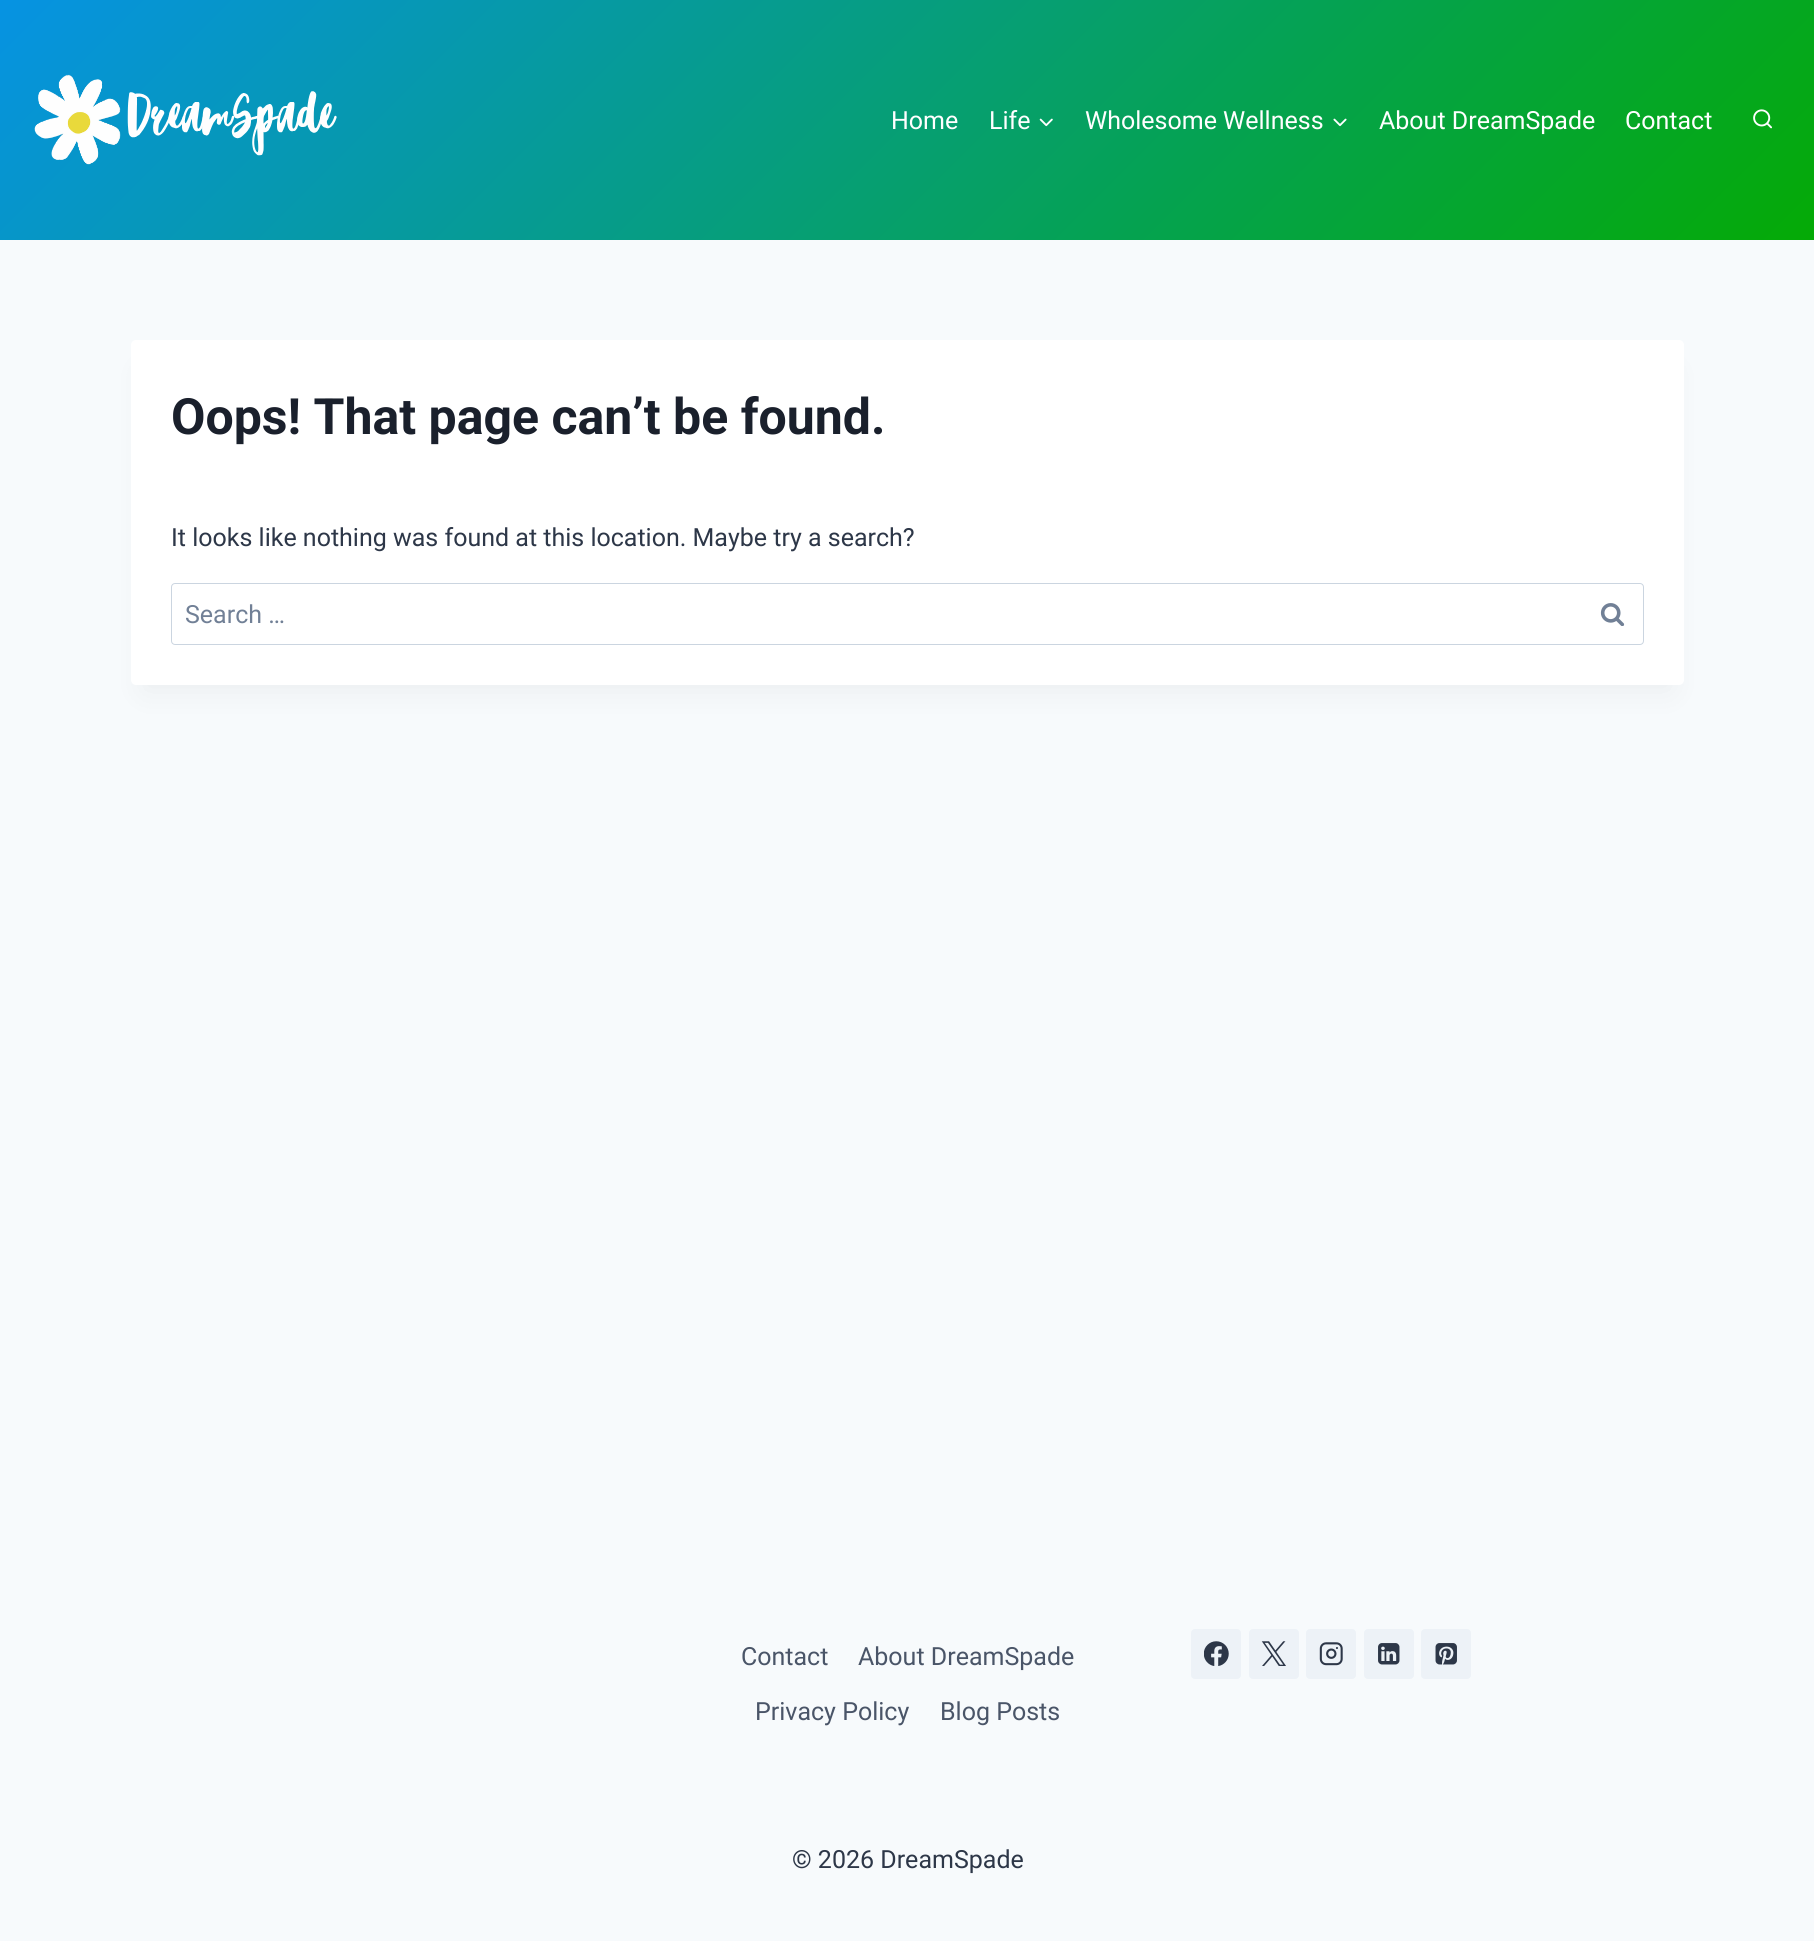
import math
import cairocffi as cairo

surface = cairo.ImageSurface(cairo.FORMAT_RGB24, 1814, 1941)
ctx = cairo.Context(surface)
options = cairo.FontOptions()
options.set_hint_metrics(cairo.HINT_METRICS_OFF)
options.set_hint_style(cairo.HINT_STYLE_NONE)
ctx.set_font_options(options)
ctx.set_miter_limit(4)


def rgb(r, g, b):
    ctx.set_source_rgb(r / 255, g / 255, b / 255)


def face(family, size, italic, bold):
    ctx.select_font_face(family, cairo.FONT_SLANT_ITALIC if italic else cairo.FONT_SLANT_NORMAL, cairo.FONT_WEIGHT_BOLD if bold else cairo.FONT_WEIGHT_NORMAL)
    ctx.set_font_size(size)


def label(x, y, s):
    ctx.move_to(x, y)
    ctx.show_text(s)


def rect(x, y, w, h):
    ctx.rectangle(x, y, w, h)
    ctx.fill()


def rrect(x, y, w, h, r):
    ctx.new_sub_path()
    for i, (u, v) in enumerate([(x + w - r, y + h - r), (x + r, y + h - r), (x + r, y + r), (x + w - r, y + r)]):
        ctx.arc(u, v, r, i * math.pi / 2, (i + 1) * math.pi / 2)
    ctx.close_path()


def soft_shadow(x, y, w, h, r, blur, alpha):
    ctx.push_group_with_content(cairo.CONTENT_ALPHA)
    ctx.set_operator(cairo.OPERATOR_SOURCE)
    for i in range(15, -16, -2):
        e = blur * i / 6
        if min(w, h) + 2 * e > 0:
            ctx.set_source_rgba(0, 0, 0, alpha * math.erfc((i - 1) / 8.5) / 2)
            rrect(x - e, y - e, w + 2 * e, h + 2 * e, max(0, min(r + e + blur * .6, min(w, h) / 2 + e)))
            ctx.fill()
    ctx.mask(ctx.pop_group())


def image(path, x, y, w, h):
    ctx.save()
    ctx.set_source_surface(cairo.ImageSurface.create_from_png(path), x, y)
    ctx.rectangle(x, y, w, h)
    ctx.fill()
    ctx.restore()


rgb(247, 250, 252)
ctx.paint()
gradient = cairo.LinearGradient(394, -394, 1421, 634)
gradient.add_color_stop_rgba(0, 0.024, 0.576, 0.89, 1)
gradient.add_color_stop_rgba(1, 0.02, 0.667, 0.02, 1)
ctx.set_source(gradient)
rect(0, 0, 1814, 240)
image('image0.png', 34, 74, 303, 91)
face('Roboto', 25, 0, 0)
rgb(255, 255, 255)
label(891, 129, 'Home')
label(989, 129, 'Life')
image('image1.png', 1039, 118, 14, 9)
label(1085, 129, 'Wholesome Wellness')
image('image2.png', 1333, 118, 14, 9)
label(1379, 129, 'About DreamSpade')
label(1625, 129, 'Contact')
image('image3.png', 1753, 109, 19, 20)
rgb(0, 0, 0)
soft_shadow(144, 371, 1527, 320, 0, 15.5, 0.05)
rgb(255, 255, 255)
rrect(131, 340, 1553, 345, 5)
ctx.fill()
face('Roboto', 50, 0, 1)
rgb(26, 32, 44)
label(171, 434, 'Oops! That page can’t be found.')
face('Roboto', 25, 0, 0)
rgb(45, 55, 72)
label(171, 546, 'It looks like nothing was found at this location. Maybe try a search?')
rrect(171.5, 583.5, 1472, 61, 3.5)
rgb(203, 213, 224)
ctx.set_line_width(1)
ctx.stroke()
rgb(113, 128, 150)
label(185, 623, 'Search …')
image('image4.png', 1600, 603, 25, 23)
rgb(74, 85, 104)
label(741, 1665, 'Contact')
label(858, 1665, 'About DreamSpade')
label(755, 1720, 'Privacy Policy')
label(940, 1720, 'Blog Posts')
rgb(237, 242, 247)
rrect(1191, 1629, 50, 50, 4)
ctx.fill()
image('image5.png', 1204, 1641, 25, 25)
rrect(1249, 1629, 50, 50, 4)
ctx.fill()
image('image6.png', 1261, 1641, 25, 25)
rrect(1306, 1629, 50, 50, 4)
ctx.fill()
image('image7.png', 1319, 1642, 24, 24)
rrect(1364, 1629, 50, 50, 4)
ctx.fill()
image('image8.png', 1378, 1643, 22, 22)
rrect(1421, 1629, 50, 50, 4)
ctx.fill()
image('image9.png', 1435, 1643, 22, 22)
rgb(45, 55, 72)
label(792, 1868, '© 2026 DreamSpade')
surface.write_to_png('render.png')
